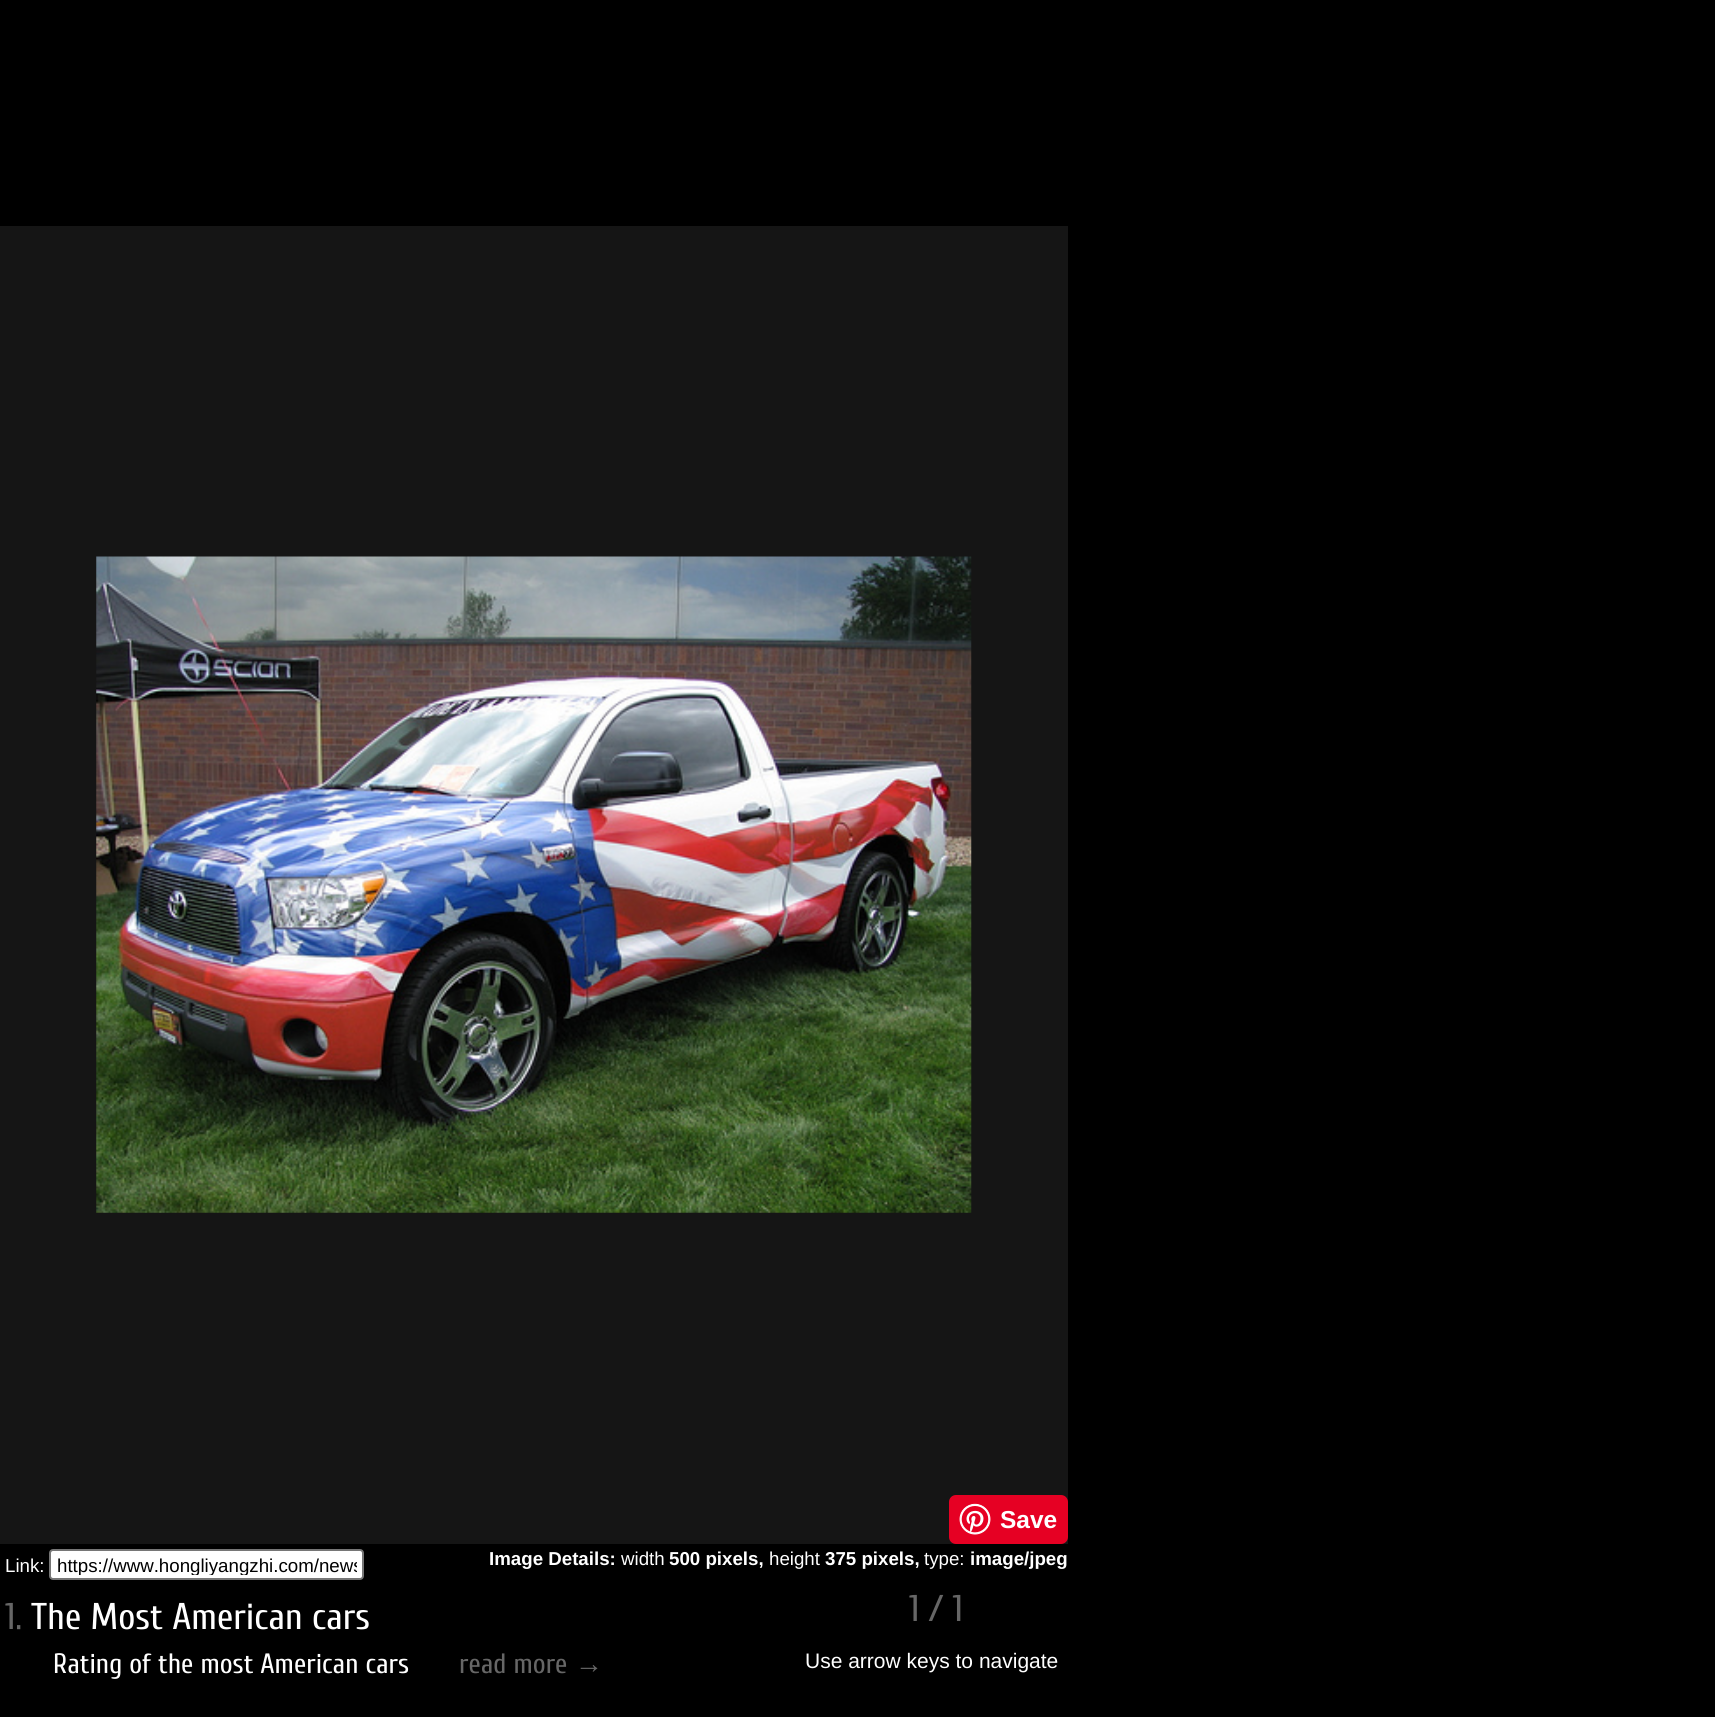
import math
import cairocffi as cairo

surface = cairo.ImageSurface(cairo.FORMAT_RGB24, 1715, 1717)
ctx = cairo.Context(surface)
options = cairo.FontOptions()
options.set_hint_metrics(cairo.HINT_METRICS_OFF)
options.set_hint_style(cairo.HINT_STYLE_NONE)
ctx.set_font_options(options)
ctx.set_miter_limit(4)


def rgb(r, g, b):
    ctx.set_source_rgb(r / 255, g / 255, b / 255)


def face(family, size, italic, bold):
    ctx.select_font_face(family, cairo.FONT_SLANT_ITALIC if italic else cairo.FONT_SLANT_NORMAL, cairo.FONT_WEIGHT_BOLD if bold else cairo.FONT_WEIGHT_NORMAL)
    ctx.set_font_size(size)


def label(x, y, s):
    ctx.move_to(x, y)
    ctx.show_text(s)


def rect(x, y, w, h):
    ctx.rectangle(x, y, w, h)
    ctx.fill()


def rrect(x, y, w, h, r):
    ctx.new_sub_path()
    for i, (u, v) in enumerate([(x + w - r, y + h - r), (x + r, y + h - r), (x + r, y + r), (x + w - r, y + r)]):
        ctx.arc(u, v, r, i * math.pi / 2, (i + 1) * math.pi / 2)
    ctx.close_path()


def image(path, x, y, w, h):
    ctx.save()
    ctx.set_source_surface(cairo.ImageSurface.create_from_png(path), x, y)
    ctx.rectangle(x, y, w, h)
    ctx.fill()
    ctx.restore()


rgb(0, 0, 0)
ctx.paint()
rgb(21, 21, 21)
rect(0, 226, 1068, 1318)
image('image0.png', 96, 556, 876, 657)
rgb(230, 0, 35)
rrect(949, 1495, 119, 49, 7)
ctx.fill()
image('image1.png', 959, 1503, 32, 32)
face('Liberation Sans', 24.5, 0, 1)
rgb(255, 255, 255)
label(1000, 1528, 'Save')
face('Liberation Sans', 18.7, 0, 0)
label(5, 1572, 'Link:')
rrect(50, 1550, 313, 29, 3)
ctx.fill_preserve()
rgb(118, 118, 118)
ctx.stroke()
ctx.save()
ctx.rectangle(56, 1554, 301, 21)
ctx.clip()
rgb(0, 0, 0)
label(57, 1572, 'https://www.hongliyangzhi.com/news')
ctx.restore()
face('Liberation Sans', 18.7, 0, 1)
rgb(255, 255, 255)
label(489, 1565, 'Image Details:')
face('Liberation Sans', 18.7, 0, 0)
label(621, 1565, 'width')
face('Liberation Sans', 18.7, 0, 1)
label(669, 1565, '500 pixels,')
face('Liberation Sans', 18.7, 0, 0)
label(769, 1565, 'height')
face('Liberation Sans', 18.7, 0, 1)
label(825, 1565, '375 pixels,')
face('Liberation Sans', 18.7, 0, 0)
label(924, 1565, 'type:')
face('Liberation Sans', 18.7, 0, 1)
label(970, 1565, 'image/jpeg')
face('Cuprum', 37.25, 0, 0)
rgb(102, 102, 102)
label(5, 1629, '1.')
rgb(255, 255, 255)
label(31, 1629, 'The Most American cars')
rgb(102, 102, 102)
label(909, 1621, '1 / 1')
face('Cuprum', 28, 0, 0)
rgb(255, 255, 255)
label(53, 1673, 'Rating of the most American cars')
rgb(102, 102, 102)
label(459, 1673, 'read more')
face('Liberation Serif', 28, 0, 0)
label(575, 1673, '→')
face('Liberation Sans', 21, 0, 0)
rgb(255, 255, 255)
label(805, 1668, 'Use arrow keys to navigate')
surface.write_to_png('render.png')
